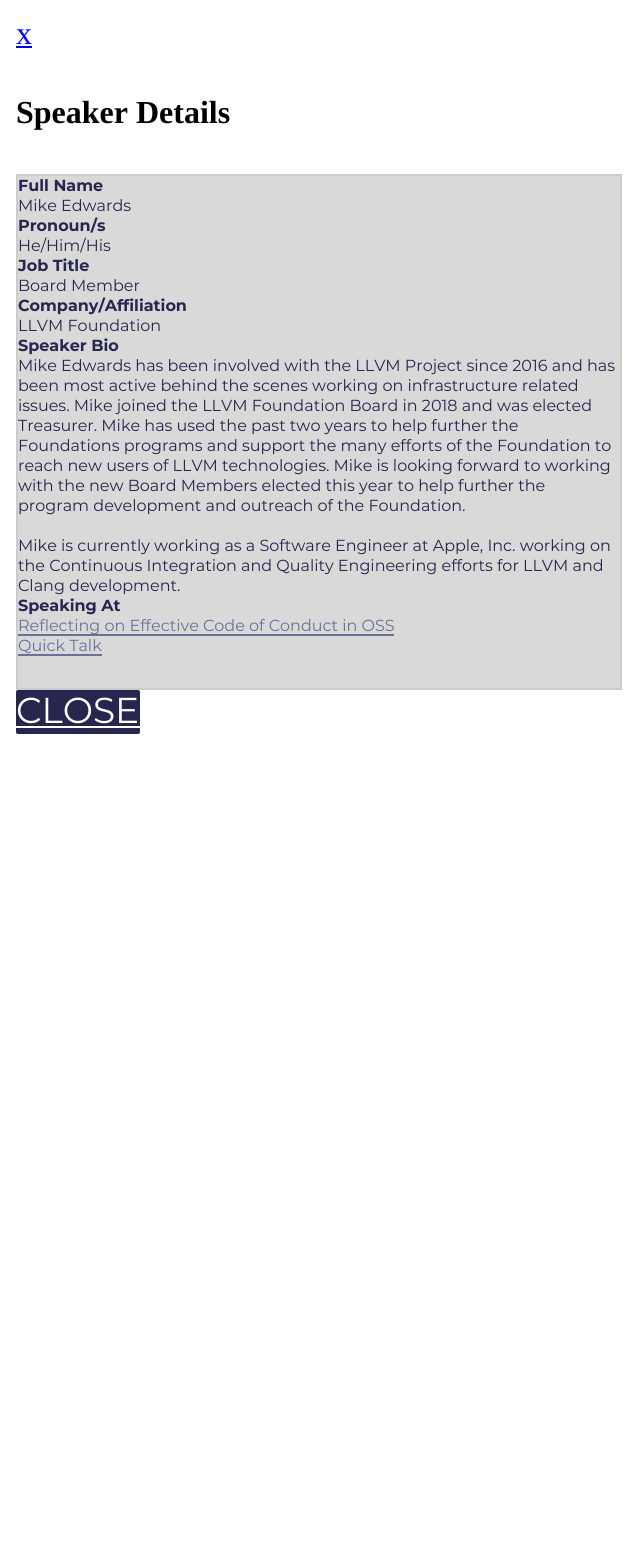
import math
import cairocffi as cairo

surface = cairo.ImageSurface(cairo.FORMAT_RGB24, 638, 1542)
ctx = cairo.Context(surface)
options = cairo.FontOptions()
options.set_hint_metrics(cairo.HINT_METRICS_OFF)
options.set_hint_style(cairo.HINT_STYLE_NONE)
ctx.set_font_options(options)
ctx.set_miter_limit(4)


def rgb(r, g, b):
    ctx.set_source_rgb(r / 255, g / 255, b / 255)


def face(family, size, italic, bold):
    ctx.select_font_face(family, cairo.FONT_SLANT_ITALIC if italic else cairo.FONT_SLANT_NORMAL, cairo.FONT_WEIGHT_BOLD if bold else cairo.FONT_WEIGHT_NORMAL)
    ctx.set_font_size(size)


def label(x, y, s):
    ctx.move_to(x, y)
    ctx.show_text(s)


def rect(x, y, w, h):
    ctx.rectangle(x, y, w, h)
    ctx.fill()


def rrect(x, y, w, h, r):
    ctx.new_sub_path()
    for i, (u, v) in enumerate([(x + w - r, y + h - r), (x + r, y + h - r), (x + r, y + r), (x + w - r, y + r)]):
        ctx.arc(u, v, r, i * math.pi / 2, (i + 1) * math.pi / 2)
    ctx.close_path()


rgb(255, 255, 255)
ctx.paint()
face('Liberation Serif', 32, 0, 0)
rgb(0, 0, 238)
label(16, 44, 'x')
rect(16, 46, 16, 2)
face('Liberation Serif', 32, 0, 1)
rgb(0, 0, 0)
label(16, 123, 'Speaker Details')
rgb(217, 217, 217)
ctx.rectangle(17, 175, 604, 514)
ctx.fill_preserve()
rgb(204, 204, 204)
ctx.stroke()
face('Montserrat', 16, 0, 1)
rgb(38, 38, 79)
label(18, 191, 'Full Name')
face('Montserrat', 16, 0, 0)
label(18, 211, 'Mike Edwards')
face('Montserrat', 16, 0, 1)
label(18, 231, 'Pronoun/s')
face('Montserrat', 16, 0, 0)
label(18, 251, 'He/Him/His')
face('Montserrat', 16, 0, 1)
label(18, 271, 'Job Title')
face('Montserrat', 16, 0, 0)
label(18, 291, 'Board Member')
face('Montserrat', 16, 0, 1)
label(18, 311, 'Company/Affiliation')
face('Montserrat', 16, 0, 0)
label(18, 331, 'LLVM Foundation')
face('Montserrat', 16, 0, 1)
label(18, 351, 'Speaker Bio')
face('Montserrat', 16, 0, 0)
label(18, 371, 'Mike Edwards has been involved with the LLVM Project since 2016 and has')
label(18, 391, 'been most active behind the scenes working on infrastructure related')
label(18, 411, 'issues. Mike joined the LLVM Foundation Board in 2018 and was elected')
label(18, 431, 'Treasurer. Mike has used the past two years to help further the')
label(18, 451, 'Foundations programs and support the many efforts of the Foundation to')
label(18, 471, 'reach new users of LLVM technologies. Mike is looking forward to working')
label(18, 491, 'with the new Board Members elected this year to help further the')
label(18, 511, 'program development and outreach of the Foundation.')
label(18, 551, 'Mike is currently working as a Software Engineer at Apple, Inc. working on')
label(18, 571, 'the Continuous Integration and Quality Engineering efforts for LLVM and')
label(18, 591, 'Clang development.')
face('Montserrat', 16, 0, 1)
label(18, 611, 'Speaking At')
rgb(107, 112, 153)
rect(18, 634, 376, 2)
face('Montserrat', 16, 0, 0)
label(18, 631, 'Reflecting on Effective Code of Conduct in OSS')
label(18, 651, 'Quick Talk')
rect(18, 654, 84, 2)
rgb(38, 38, 79)
rrect(16, 690, 124, 44, 2)
ctx.fill()
face('Montserrat', 36, 0, 0)
rgb(255, 255, 255)
label(16, 723, 'CLOSE')
rect(16, 726, 124, 2)
surface.write_to_png('render.png')
